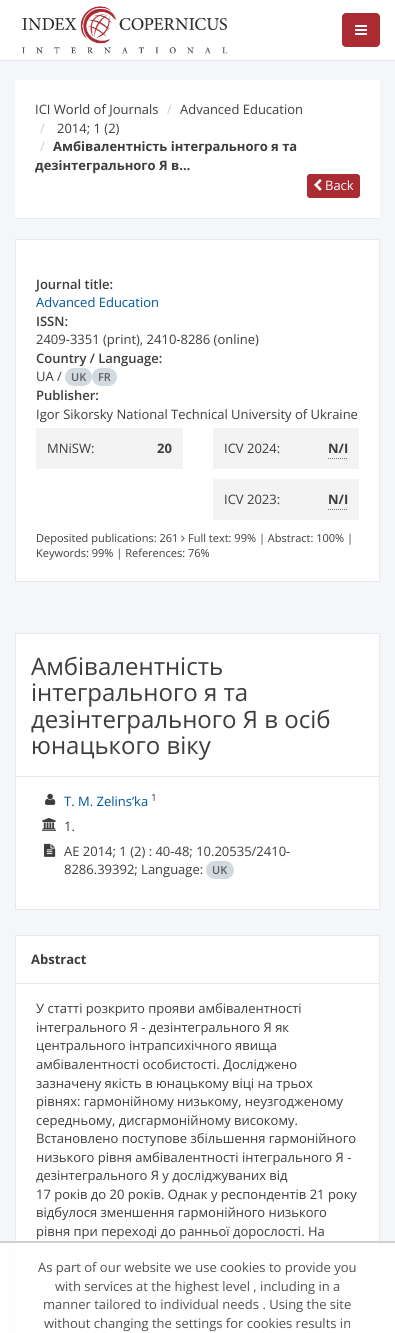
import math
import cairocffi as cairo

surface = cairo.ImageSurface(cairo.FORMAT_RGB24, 395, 1333)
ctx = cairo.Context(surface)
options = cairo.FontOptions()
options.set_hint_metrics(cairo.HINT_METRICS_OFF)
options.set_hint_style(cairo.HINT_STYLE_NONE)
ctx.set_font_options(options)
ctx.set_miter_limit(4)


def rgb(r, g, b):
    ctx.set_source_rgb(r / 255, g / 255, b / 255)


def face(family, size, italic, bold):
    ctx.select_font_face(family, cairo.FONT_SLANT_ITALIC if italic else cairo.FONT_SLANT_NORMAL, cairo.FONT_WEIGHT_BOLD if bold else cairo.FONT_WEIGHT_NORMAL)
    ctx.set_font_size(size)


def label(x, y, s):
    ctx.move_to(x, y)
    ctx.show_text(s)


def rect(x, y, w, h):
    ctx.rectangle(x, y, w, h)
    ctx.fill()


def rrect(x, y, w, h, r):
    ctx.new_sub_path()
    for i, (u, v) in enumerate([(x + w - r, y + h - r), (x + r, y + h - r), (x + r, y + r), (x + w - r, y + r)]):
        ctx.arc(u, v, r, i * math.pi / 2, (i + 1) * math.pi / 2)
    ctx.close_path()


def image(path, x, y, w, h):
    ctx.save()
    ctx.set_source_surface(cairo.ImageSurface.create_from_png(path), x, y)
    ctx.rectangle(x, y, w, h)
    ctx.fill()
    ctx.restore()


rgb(244, 246, 250)
ctx.paint()
rgb(255, 255, 255)
rect(0, 0, 395, 60)
rgb(231, 234, 236)
rect(0, 60, 395, 1)
image('image0.png', 22, 6, 206, 48)
rgb(170, 43, 49)
rrect(342, 13, 38, 34, 4)
ctx.fill()
image('image1.png', 355, 25, 12, 10)
rgb(255, 255, 255)
rect(15, 80, 365, 138)
rgb(231, 234, 236)
rect(15, 218, 365, 1)
face('Open Sans', 13, 0, 0)
rgb(61, 61, 61)
label(35, 114, 'ICI World of Journals')
rgb(204, 204, 204)
label(167, 114, '/')
rgb(61, 61, 61)
label(180, 114, 'Advanced Education')
rgb(204, 204, 204)
label(40, 133, '/')
rgb(61, 61, 61)
label(57, 133, '2014; 1 (2)')
rgb(204, 204, 204)
label(40, 151, '/')
face('Open Sans', 13, 0, 1)
rgb(61, 61, 61)
label(53, 151, 'Амбівалентність інтегрального я та')
label(35, 170, 'дезінтегрального Я в…')
rgb(170, 43, 49)
rrect(307.5, 174.5, 52, 23, 2.5)
ctx.fill_preserve()
ctx.set_line_width(1)
ctx.stroke()
image('image2.png', 314, 179, 8, 12)
face('Open Sans', 13, 0, 0)
rgb(255, 255, 255)
label(325, 190, 'Back')
ctx.rectangle(15.5, 239.5, 364, 342)
ctx.fill_preserve()
rgb(231, 234, 236)
ctx.stroke()
face('Open Sans SemiBold', 13, 0, 0)
rgb(61, 61, 61)
label(36, 289, 'Journal title:')
face('Open Sans', 13, 0, 0)
rgb(0, 83, 155)
label(36, 307, 'Advanced Education')
face('Open Sans SemiBold', 13, 0, 0)
rgb(61, 61, 61)
label(36, 326, 'ISSN:')
face('Open Sans', 13, 0, 0)
label(36, 344, '2409-3351 (print), 2410-8286 (online)')
face('Open Sans SemiBold', 13, 0, 0)
label(36, 363, 'Country / Language:')
face('Open Sans', 13, 0, 0)
label(36, 381, 'UA /')
rgb(209, 218, 222)
rrect(65, 368, 27, 18, 9)
ctx.fill()
face('Open Sans SemiBold', 11, 0, 0)
rgb(94, 94, 94)
label(71, 381, 'UK')
rgb(209, 218, 222)
rrect(92, 368, 25, 18, 9)
ctx.fill()
rgb(94, 94, 94)
label(98, 381, 'FR')
face('Open Sans SemiBold', 13, 0, 0)
rgb(61, 61, 61)
label(36, 400, 'Publisher:')
face('Open Sans', 13, 0, 0)
label(36, 419, 'Igor Sikorsky National Technical University of Ukraine')
rgb(243, 243, 244)
rect(36, 428, 147, 41)
rgb(61, 61, 61)
label(47, 453, 'MNiSW:')
face('Open Sans', 13, 0, 1)
label(157, 453, '20')
rgb(243, 243, 244)
rect(213, 428, 146, 41)
face('Open Sans', 13, 0, 0)
rgb(61, 61, 61)
label(224, 453, 'ICV 2024:')
ctx.new_path()
ctx.move_to(328, 458.5)
ctx.line_to(348, 458.5)
rgb(119, 119, 119)
ctx.set_dash([1, 1])
ctx.stroke()
face('Open Sans', 13, 0, 1)
rgb(61, 61, 61)
label(328, 453, 'N/I')
rgb(243, 243, 244)
rect(213, 479, 146, 41)
face('Open Sans', 13, 0, 0)
rgb(61, 61, 61)
label(224, 504, 'ICV 2023:')
ctx.new_path()
ctx.move_to(328, 509.5)
ctx.line_to(348, 509.5)
rgb(119, 119, 119)
ctx.stroke()
face('Open Sans', 13, 0, 1)
rgb(61, 61, 61)
label(328, 504, 'N/I')
face('Open Sans', 11, 0, 0)
label(36, 542, 'Deposited publications: 261')
image('image3.png', 181, 535, 4, 7)
label(188, 542, 'Full text: 99% | Abstract: 100% |')
label(36, 557, 'Keywords: 99% | References: 76%')
rgb(255, 255, 255)
rect(16, 634, 363, 142)
rgb(231, 234, 236)
rect(15, 633, 365, 1)
rect(379, 633, 1, 143)
rect(15, 633, 1, 143)
face('Open Sans', 24, 0, 0)
rgb(61, 61, 61)
label(31, 675, 'Амбівалентність')
label(31, 701, 'інтегрального я та')
label(31, 728, 'дезінтегрального Я в осіб')
label(31, 754, 'юнацького віку')
rgb(255, 255, 255)
ctx.rectangle(15.5, 776.5, 364, 133)
ctx.fill_preserve()
rgb(231, 234, 236)
ctx.set_dash([])
ctx.stroke()
image('image4.png', 45, 793, 11, 12)
face('Open Sans', 13, 0, 0)
rgb(0, 83, 155)
label(64, 806, 'T. M. Zelins’ka')
face('Open Sans', 10, 0, 0)
rgb(61, 61, 61)
label(151, 801, '1')
image('image5.png', 42, 817, 14, 14)
face('Open Sans', 13, 0, 0)
label(64, 831, '1.')
image('image6.png', 44, 843, 12, 14)
label(64, 856, 'AE 2014; 1 (2) : 40-48; 10.20535/2410-')
label(64, 874, '8286.39392; Language:')
rgb(209, 218, 222)
rrect(206, 861, 28, 18, 9)
ctx.fill()
face('Open Sans SemiBold', 11, 0, 0)
rgb(94, 94, 94)
label(212, 874, 'UK')
rgb(255, 255, 255)
rect(16, 936, 363, 47)
rgb(231, 234, 236)
rect(15, 935, 365, 1)
rect(379, 935, 1, 48)
rect(15, 935, 1, 48)
face('Open Sans', 13, 0, 1)
rgb(61, 61, 61)
label(31, 964, 'Abstract')
rgb(255, 255, 255)
ctx.rectangle(15.5, 983.5, 364, 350)
ctx.fill_preserve()
rgb(231, 234, 236)
ctx.stroke()
face('Open Sans', 13, 0, 0)
rgb(61, 61, 61)
label(36, 1013, 'У статті розкрито прояви амбівалентності')
label(36, 1032, 'інтегрального Я - дезінтегрального Я як')
label(36, 1050, 'центрального інтрапсихічного явища')
label(36, 1069, 'амбівалентності особистості. Досліджено')
label(36, 1088, 'зазначену якість в юнацькому віці на трьох')
label(36, 1106, 'рівнях: гармонійному низькому, неузгодженому')
label(36, 1125, 'середньому, дисгармонійному високому.')
label(36, 1143, 'Встановлено поступове збільшення гармонійного')
label(36, 1162, 'низького рівня амбівалентності інтегрального Я -')
label(36, 1180, 'дезінтегрального Я у досліджуваних від')
label(36, 1199, '17 років до 20 років. Однак у респондентів 21 року')
label(36, 1217, 'відбулося зменшення гармонійного низького')
label(36, 1236, 'рівня при переході до ранньої дорослості. На')
ctx.set_source_rgba(1, 1, 1, 0.9)
rect(0, 1243, 395, 90)
rgb(209, 209, 209)
rect(0, 1241, 395, 2)
rgb(80, 80, 80)
label(38, 1272, 'As part of our website we use cookies to provide you')
label(55, 1291, 'with services at the highest level , including in a')
label(43, 1309, 'manner tailored to individual needs . Using the site')
label(44, 1328, 'without changing the settings for cookies results in')
surface.write_to_png('render.png')
